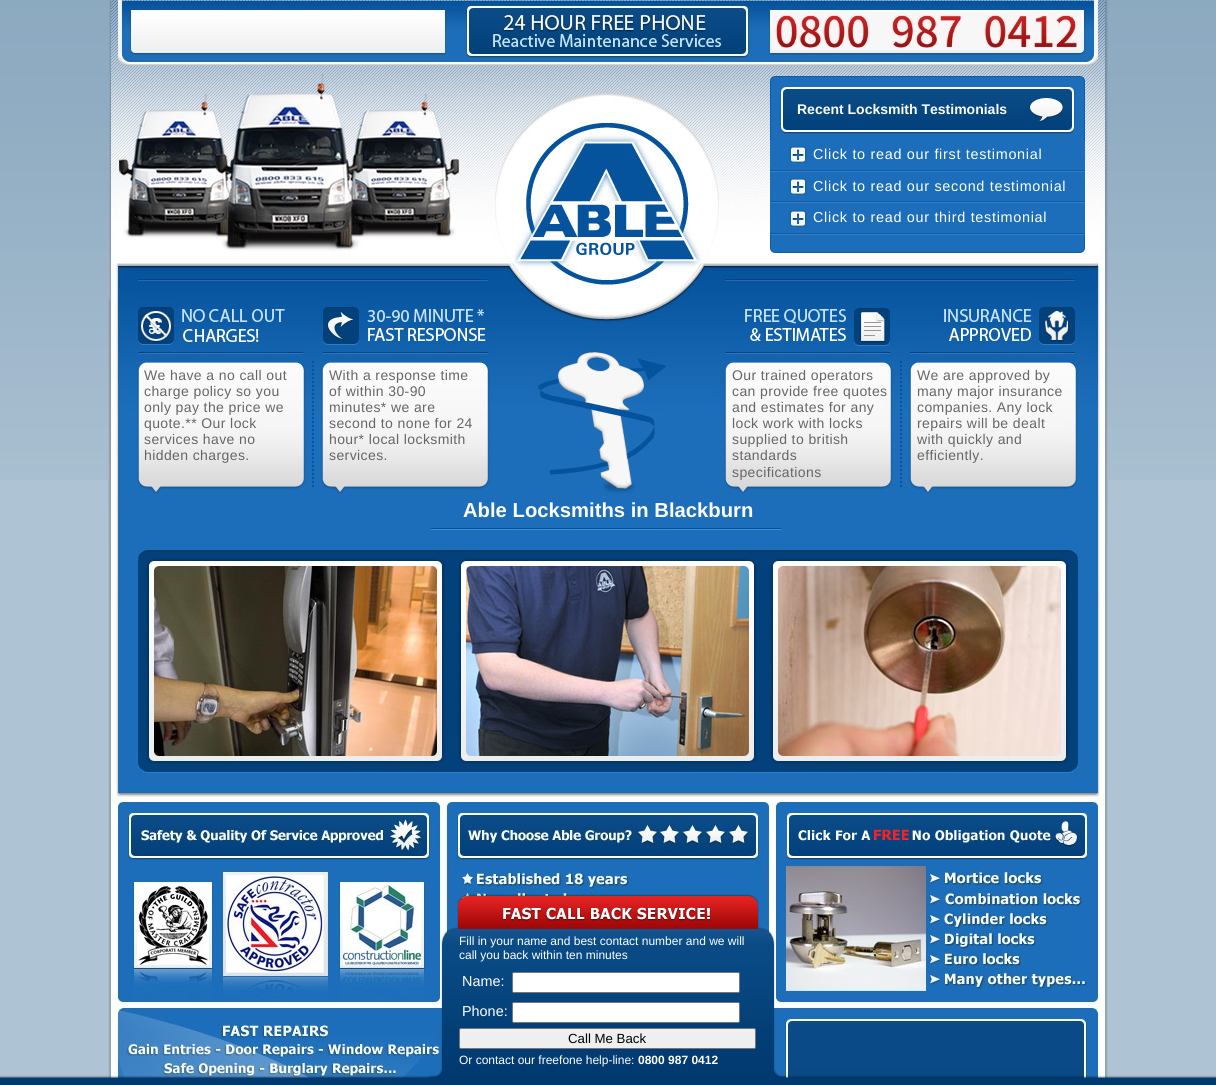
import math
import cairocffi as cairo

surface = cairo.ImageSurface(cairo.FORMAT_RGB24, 1216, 1085)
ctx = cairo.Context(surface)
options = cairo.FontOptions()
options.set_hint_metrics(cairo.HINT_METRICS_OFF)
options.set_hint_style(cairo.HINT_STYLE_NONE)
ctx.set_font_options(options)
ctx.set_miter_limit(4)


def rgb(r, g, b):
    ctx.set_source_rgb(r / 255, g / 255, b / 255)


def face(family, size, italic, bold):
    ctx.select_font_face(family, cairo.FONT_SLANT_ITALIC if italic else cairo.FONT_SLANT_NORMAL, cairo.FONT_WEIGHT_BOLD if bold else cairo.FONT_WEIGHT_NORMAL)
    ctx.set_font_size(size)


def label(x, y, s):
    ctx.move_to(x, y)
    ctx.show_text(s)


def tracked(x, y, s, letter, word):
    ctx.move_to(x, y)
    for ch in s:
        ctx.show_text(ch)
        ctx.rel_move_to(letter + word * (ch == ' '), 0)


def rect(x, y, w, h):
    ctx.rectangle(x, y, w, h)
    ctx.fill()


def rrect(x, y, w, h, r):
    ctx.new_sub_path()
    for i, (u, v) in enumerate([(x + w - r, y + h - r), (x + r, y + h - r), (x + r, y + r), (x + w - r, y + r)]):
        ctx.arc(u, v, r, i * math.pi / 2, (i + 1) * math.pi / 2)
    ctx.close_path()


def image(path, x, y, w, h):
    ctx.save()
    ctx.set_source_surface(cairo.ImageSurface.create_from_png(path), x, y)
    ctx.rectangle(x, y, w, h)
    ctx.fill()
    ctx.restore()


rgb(174, 195, 211)
ctx.paint()
image('image0.png', 0, 0, 1216, 480)
image('image1.png', 108, 0, 1000, 300)
image('image2.png', 505, 120, 200, 180)
image('image3.png', 770, 76, 315, 64)
face('Liberation Sans', 14, 0, 1)
rgb(255, 255, 255)
label(797, 114, 'Recent Locksmith Testimonials')
rgb(28, 110, 186)
rect(770, 140, 315, 93)
image('image4.png', 789, 146, 18, 17)
face('Liberation Sans', 14.4, 0, 0)
rgb(255, 255, 255)
tracked(813, 159, 'Click to read our first testimonial', 0.7, 0)
image('image5.png', 770, 170, 315, 2)
image('image4.png', 789, 178, 18, 17)
tracked(813, 191, 'Click to read our second testimonial', 0.7, 0)
image('image5.png', 770, 201, 315, 2)
image('image4.png', 789, 210, 18, 17)
tracked(813, 222, 'Click to read our third testimonial', 0.7, 0)
image('image5.png', 770, 233, 315, 2)
image('image6.png', 770, 235, 315, 18)
image('image7.png', 108, 300, 1000, 200)
face('Liberation Sans', 14, 0, 0)
rgb(102, 102, 102)
tracked(144, 380, 'We have a no call out', 0.4, 0)
tracked(144, 396, 'charge policy so you', 0.4, 0)
tracked(144, 412, 'only pay the price we', 0.4, 0)
tracked(144, 428, 'quote.** Our lock', 0.4, 0)
tracked(144, 444, 'services have no', 0.4, 0)
tracked(144, 460, 'hidden charges.', 0.4, 0)
tracked(329, 380, 'With a response time', 0.4, 0)
tracked(329, 396, 'of within 30-90', 0.4, 0)
tracked(329, 412, 'minutes* we are', 0.4, 0)
tracked(329, 428, 'second to none for 24', 0.4, 0)
tracked(329, 444, 'hour* local locksmith', 0.4, 0)
tracked(329, 460, 'services.', 0.4, 0)
tracked(732, 380, 'Our trained operators', 0.4, 0)
tracked(732, 396, 'can provide free quotes', 0.4, 0)
tracked(732, 412, 'and estimates for any', 0.4, 0)
tracked(732, 428, 'lock work with locks', 0.4, 0)
tracked(732, 444, 'supplied to british', 0.4, 0)
tracked(732, 460, 'standards', 0.4, 0)
tracked(732, 477, 'specifications', 0.4, 0)
tracked(917, 380, 'We are approved by', 0.4, 0)
tracked(917, 396, 'many major insurance', 0.4, 0)
tracked(917, 412, 'companies. Any lock', 0.4, 0)
tracked(917, 428, 'repairs will be dealt', 0.4, 0)
tracked(917, 444, 'with quickly and', 0.4, 0)
tracked(917, 460, 'efficiently.', 0.4, 0)
image('image8.png', 108, 500, 1000, 300)
face('Liberation Sans', 20.25, 0, 1)
rgb(255, 255, 255)
label(463, 517, 'Able Locksmiths in Blackburn')
image('image9.png', 108, 800, 1000, 278)
image('image10.png', 116, 802, 984, 276)
image('image11.png', 787, 813, 300, 47)
image('image13.png', 0, 1075, 1216, 10)
image('image12.png', 429, 894, 357, 184)
face('Liberation Sans', 12, 0, 0)
label(459, 945, 'Fill in your name and best contact number and we will')
label(459, 959, 'call you back within ten minutes')
face('Liberation Sans', 14.4, 0, 0)
label(462, 986, 'Name:')
rrect(512.5, 972.5, 227, 20, 1.5)
ctx.fill_preserve()
rgb(118, 118, 118)
ctx.set_line_width(1)
ctx.stroke()
rgb(255, 255, 255)
label(462, 1016, 'Phone:')
rrect(512.5, 1002.5, 227, 20, 1.5)
ctx.fill_preserve()
rgb(118, 118, 118)
ctx.stroke()
rgb(239, 239, 239)
rrect(459.5, 1028.5, 296, 20, 1.5)
ctx.fill_preserve()
rgb(118, 118, 118)
ctx.stroke()
face('Liberation Sans', 13.25, 0, 0)
rgb(0, 0, 0)
label(568, 1043, 'Call Me Back')
face('Liberation Sans', 12, 0, 0)
rgb(255, 255, 255)
label(459, 1064, 'Or contact our freefone help-line:')
face('Liberation Sans', 12, 0, 1)
label(638, 1064, '0800 987 0412')
surface.write_to_png('render.png')
